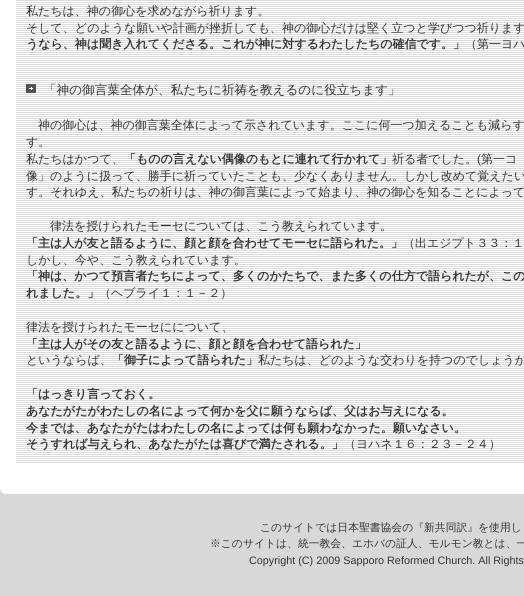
import math
import cairocffi as cairo

surface = cairo.ImageSurface(cairo.FORMAT_RGB24, 524, 596)
ctx = cairo.Context(surface)
options = cairo.FontOptions()
options.set_hint_metrics(cairo.HINT_METRICS_OFF)
options.set_hint_style(cairo.HINT_STYLE_NONE)
ctx.set_font_options(options)
ctx.set_miter_limit(4)


def rgb(r, g, b):
    ctx.set_source_rgb(r / 255, g / 255, b / 255)


def face(family, size, italic, bold):
    ctx.select_font_face(family, cairo.FONT_SLANT_ITALIC if italic else cairo.FONT_SLANT_NORMAL, cairo.FONT_WEIGHT_BOLD if bold else cairo.FONT_WEIGHT_NORMAL)
    ctx.set_font_size(size)


def label(x, y, s):
    ctx.move_to(x, y)
    ctx.show_text(s)


def rect(x, y, w, h):
    ctx.rectangle(x, y, w, h)
    ctx.fill()


def image(path, x, y, w, h):
    ctx.save()
    ctx.set_source_surface(cairo.ImageSurface.create_from_png(path), x, y)
    ctx.rectangle(x, y, w, h)
    ctx.fill()
    ctx.restore()


rgb(216, 216, 216)
ctx.paint()
rgb(255, 255, 255)
rect(8, 0, 516, 494)
rect(0, 0, 8, 486)
image('image0.png', 16, 0, 508, 463)
face('WenQuanYi Zen Hei Medium', 12, 0, 0)
rgb(51, 51, 51)
label(26, 15, '私たちは、神の御心を求めながら祈ります。')
label(26, 32, 'そして、どのような願いや計画が挫折しても、神の御心だけは堅く立つと学びつつ祈ります')
face('WenQuanYi Zen Hei', 12, 0, 1)
label(26, 48, 'うなら、神は聞き入れてくださる。これが神に対するわたしたちの確信です。」')
face('WenQuanYi Zen Hei Medium', 12, 0, 0)
label(465, 48, '（第一ヨハ')
image('image1.png', 26, 84, 10, 9)
face('WenQuanYi Zen Hei Medium', 12.6, 0, 0)
label(44, 94, '「神の御言葉全体が、私たちに祈祷を教えるのに役立ちます」')
face('WenQuanYi Zen Hei Medium', 12, 0, 0)
label(38, 129, '神の御心は、神の御言葉全体によって示されています。ここに何一つ加えることも減らす')
label(26, 146, 'す。')
label(26, 163, '私たちはかつて、')
face('WenQuanYi Zen Hei', 12, 0, 1)
label(124, 163, '「ものの言えない偶像のもとに連れて行かれて」')
face('WenQuanYi Zen Hei Medium', 12, 0, 0)
label(392, 163, '祈る者でした。')
face('Liberation Sans', 12, 0, 0)
label(477, 163, '(')
face('WenQuanYi Zen Hei Medium', 12, 0, 0)
label(481, 163, '第一コ')
label(26, 180, '像」のように扱って、勝手に祈っていたことも、少なくありません。しかし改めて覚えたい')
label(26, 196, 'す。それゆえ、私たちの祈りは、神の御言葉によって始まり、神の御心を知ることによって')
label(50, 230, '律法を授けられたモーセについては、こう教えられています。')
face('WenQuanYi Zen Hei', 12, 0, 1)
label(26, 247, '「主は人が友と語るように、顔と顔を合わせてモーセに語られた。」')
face('WenQuanYi Zen Hei Medium', 12, 0, 0)
label(403, 247, '（出エジプト３３：１')
label(26, 264, 'しかし、今や、こう教えられています。')
face('WenQuanYi Zen Hei', 12, 0, 1)
label(26, 280, '「神は、かつて預言者たちによって、多くのかたちで、また多くの仕方で語られたが、この')
label(26, 297, 'れました。」')
face('WenQuanYi Zen Hei Medium', 12, 0, 0)
label(99, 297, '（ヘブライ１：１－２）')
label(26, 331, '律法を授けられたモーセにについて、')
face('WenQuanYi Zen Hei', 12, 0, 1)
label(26, 348, '「主は人がその友と語るように、顔と顔を合わせて語られた」')
face('WenQuanYi Zen Hei Medium', 12, 0, 0)
label(26, 364, 'というならば、')
face('WenQuanYi Zen Hei', 12, 0, 1)
label(112, 364, '「御子によって語られた」')
face('WenQuanYi Zen Hei Medium', 12, 0, 0)
label(258, 364, '私たちは、どのような交わりを持つのでしょうか')
face('WenQuanYi Zen Hei', 12, 0, 1)
label(26, 398, '「はっきり言っておく。')
label(26, 415, 'あなたがたがわたしの名によって何かを父に願うならば、父はお与えになる。')
label(26, 432, '今までは、あなたがたはわたしの名によっては何も願わなかった。願いなさい。')
label(26, 448, 'そうすれば与えられ、あなたがたは喜びで満たされる。」')
face('WenQuanYi Zen Hei Medium', 12, 0, 0)
label(344, 448, '（ヨハネ１６：２３－２４）')
image('image2.png', 0, 486, 8, 8)
face('WenQuanYi Zen Hei Medium', 10.8, 0, 0)
label(260, 531, 'このサイトでは日本聖書協会の『新共同訳』を使用し')
label(210, 547, '※このサイトは、統一教会、エホバの証人、モルモン教とは、一')
face('Liberation Sans', 10.8, 0, 0)
label(249, 564, 'Copyright (C) 2009 Sapporo Reformed Church. All Rights')
surface.write_to_png('render.png')
